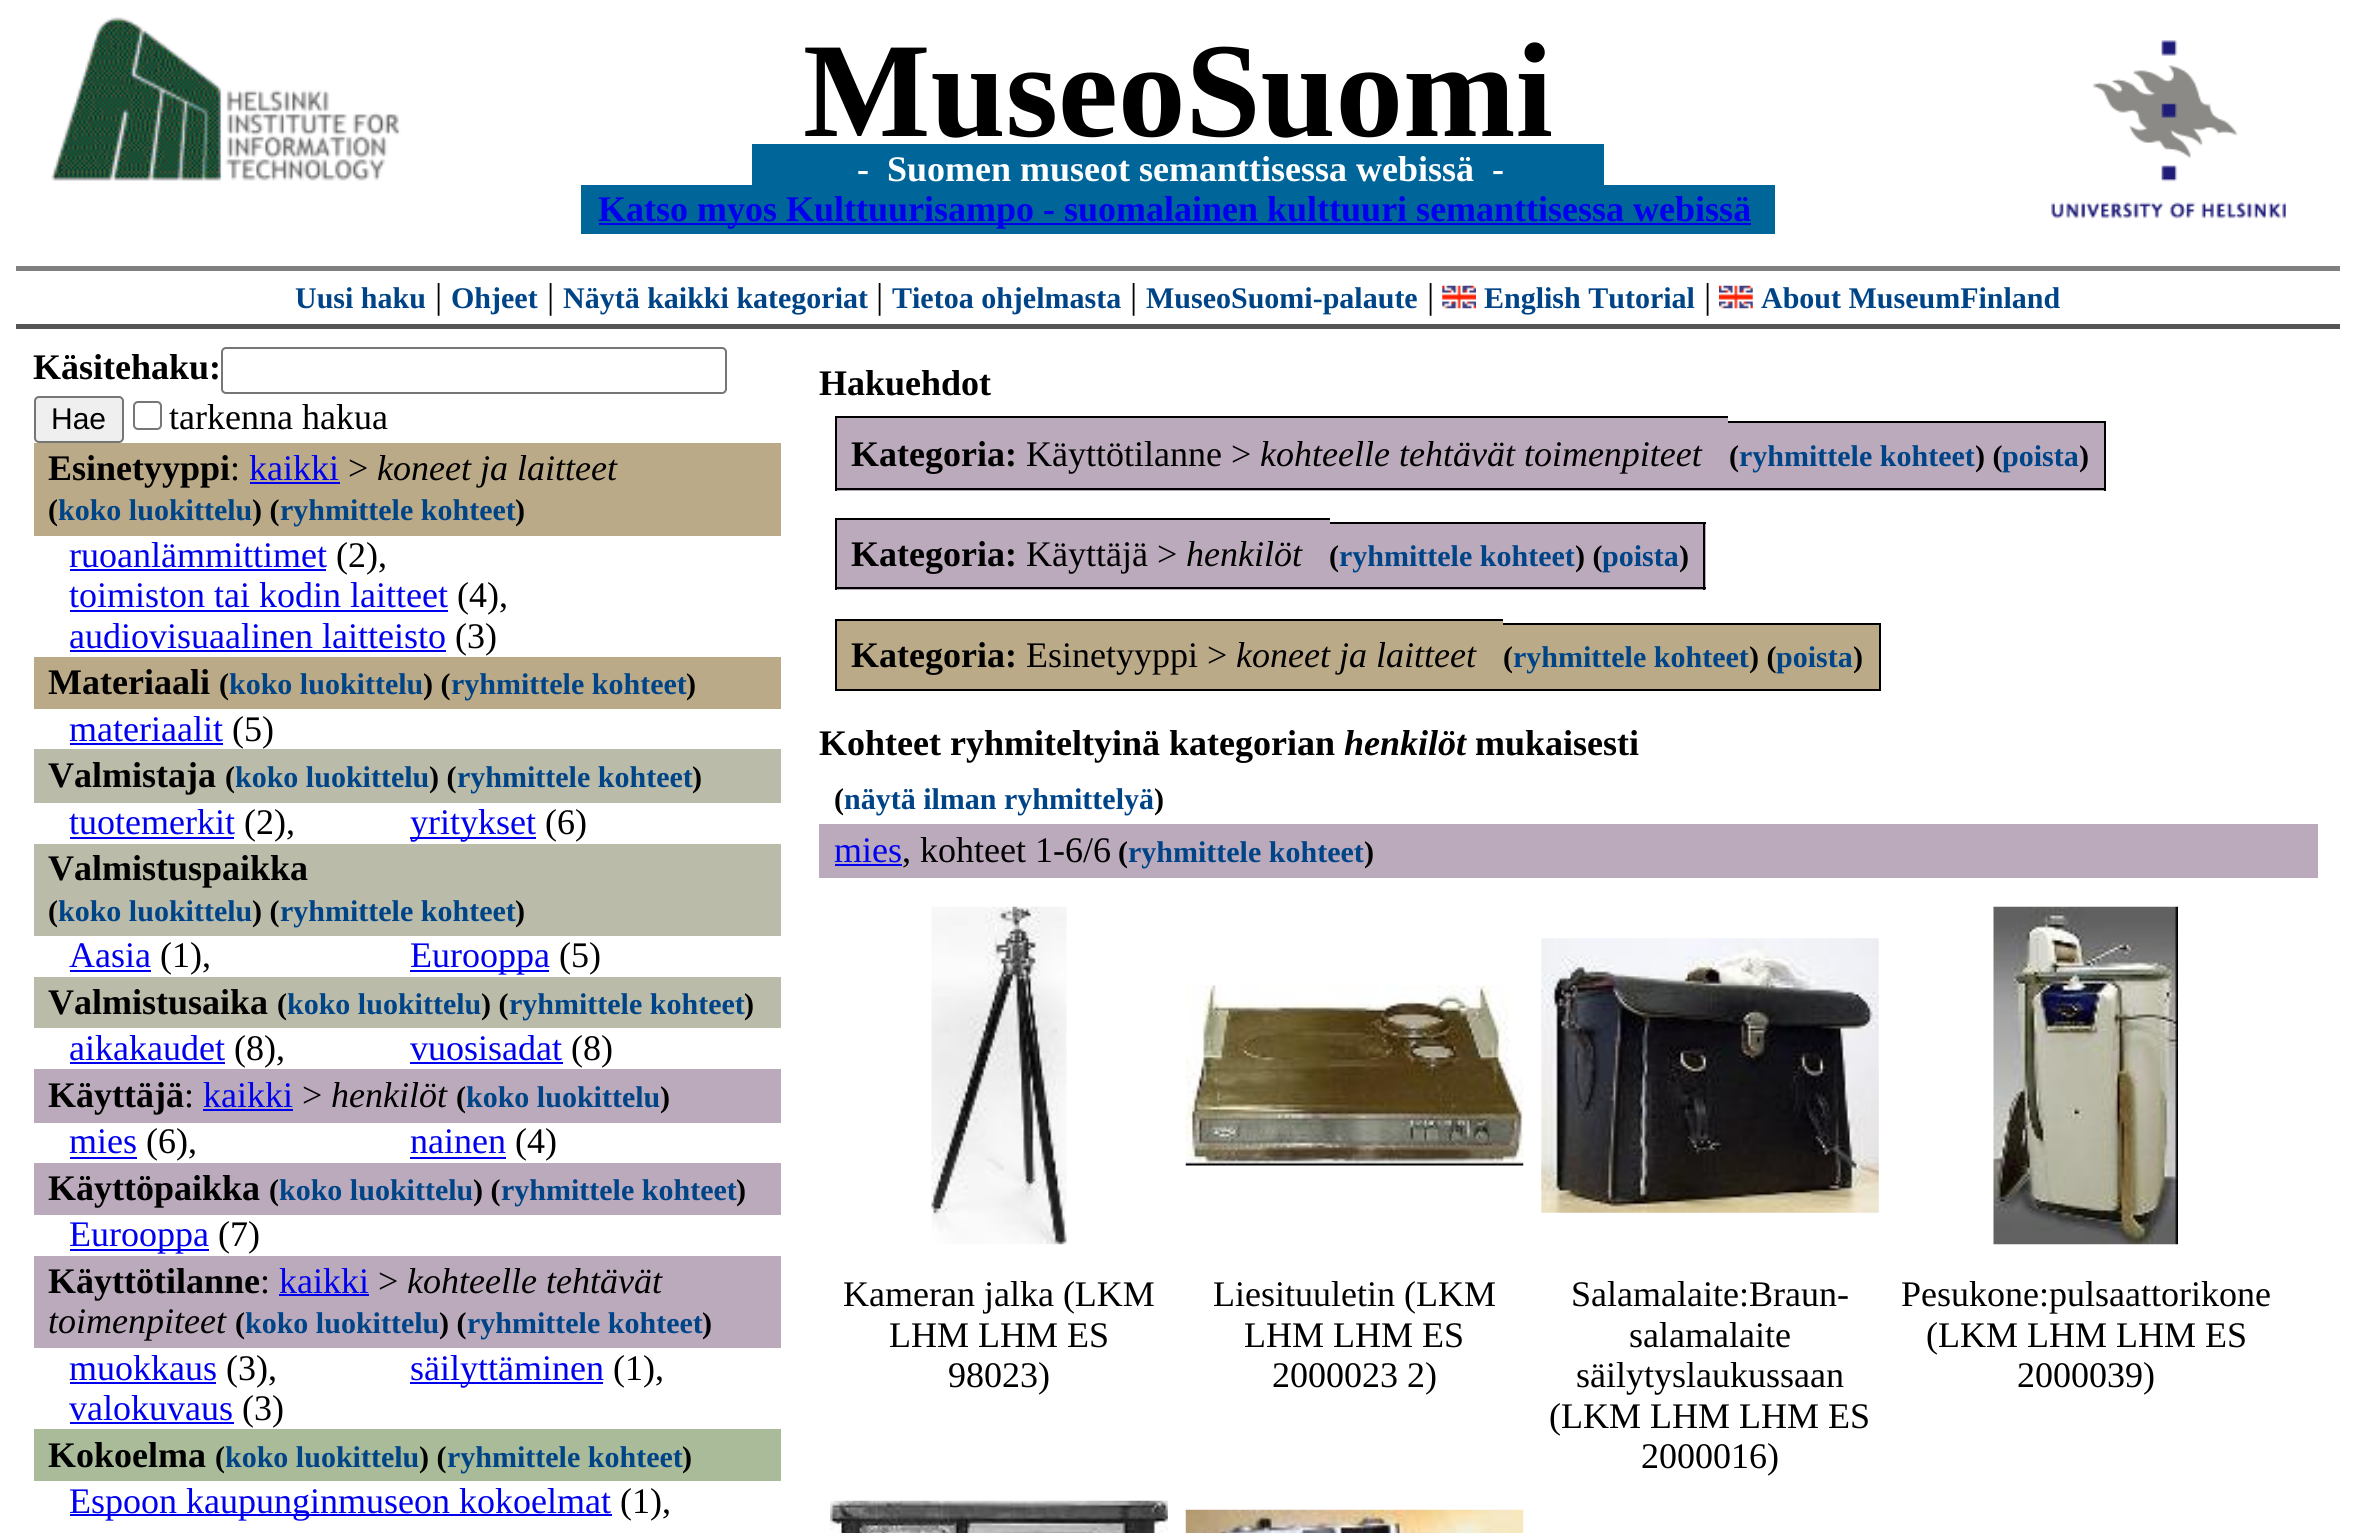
import math
import cairocffi as cairo

surface = cairo.ImageSurface(cairo.FORMAT_RGB24, 2355, 1533)
ctx = cairo.Context(surface)
options = cairo.FontOptions()
options.set_hint_metrics(cairo.HINT_METRICS_OFF)
options.set_hint_style(cairo.HINT_STYLE_NONE)
ctx.set_font_options(options)
ctx.set_miter_limit(4)


def rgb(r, g, b):
    ctx.set_source_rgb(r / 255, g / 255, b / 255)


def face(family, size, italic, bold):
    ctx.select_font_face(family, cairo.FONT_SLANT_ITALIC if italic else cairo.FONT_SLANT_NORMAL, cairo.FONT_WEIGHT_BOLD if bold else cairo.FONT_WEIGHT_NORMAL)
    ctx.set_font_size(size)


def label(x, y, s):
    ctx.move_to(x, y)
    ctx.show_text(s)


def rect(x, y, w, h):
    ctx.rectangle(x, y, w, h)
    ctx.fill()


def rrect(x, y, w, h, r):
    ctx.new_sub_path()
    for i, (u, v) in enumerate([(x + w - r, y + h - r), (x + r, y + h - r), (x + r, y + r), (x + w - r, y + r)]):
        ctx.arc(u, v, r, i * math.pi / 2, (i + 1) * math.pi / 2)
    ctx.close_path()


def image(path, x, y, w, h):
    ctx.save()
    ctx.set_source_surface(cairo.ImageSurface.create_from_png(path), x, y)
    ctx.rectangle(x, y, w, h)
    ctx.fill()
    ctx.restore()


rgb(255, 255, 255)
ctx.paint()
image('image0.png', 51, 17, 350, 164)
face('Liberation Serif', 135, 0, 1)
rgb(0, 0, 0)
label(803, 136, 'MuseoSuomi')
image('image1.png', 2051, 40, 235, 179)
rgb(0, 102, 153)
rect(752, 144, 852, 41)
face('Liberation Serif', 36, 0, 1)
rgb(255, 255, 255)
label(857, 181, '-')
label(887, 181, 'Suomen museot semanttisessa webissä')
label(1492, 181, '-')
rgb(0, 102, 153)
rect(581, 185, 1194, 49)
rgb(0, 0, 238)
rect(599, 223, 1152, 2)
label(598, 221, 'Katso myos Kulttuurisampo - suomalainen kulttuuri semanttisessa webissä')
rgb(128, 128, 128)
rect(16, 266, 2324, 5)
rgb(85, 85, 85)
rect(16, 324, 2324, 5)
face('Liberation Serif', 30, 0, 1)
rgb(0, 68, 136)
label(295, 308, 'Uusi haku')
face('Liberation Serif', 36, 0, 0)
rgb(0, 0, 0)
label(435, 308, '|')
face('Liberation Serif', 30, 0, 1)
rgb(0, 68, 136)
label(451, 308, 'Ohjeet')
face('Liberation Serif', 36, 0, 0)
rgb(0, 0, 0)
label(547, 308, '|')
face('Liberation Serif', 30, 0, 1)
rgb(0, 68, 136)
label(563, 308, 'Näytä kaikki kategoriat')
face('Liberation Serif', 36, 0, 0)
rgb(0, 0, 0)
label(876, 308, '|')
face('Liberation Serif', 30, 0, 1)
rgb(0, 68, 136)
label(892, 308, 'Tietoa ohjelmasta')
face('Liberation Serif', 36, 0, 0)
rgb(0, 0, 0)
label(1130, 308, '|')
face('Liberation Serif', 30, 0, 1)
rgb(0, 68, 136)
label(1146, 308, 'MuseoSuomi-palaute')
face('Liberation Serif', 36, 0, 0)
rgb(0, 0, 0)
label(1427, 308, '|')
image('image2.png', 1442, 285, 34, 24)
face('Liberation Serif', 30, 0, 1)
rgb(0, 68, 136)
label(1484, 308, 'English Tutorial')
face('Liberation Serif', 36, 0, 0)
rgb(0, 0, 0)
label(1704, 308, '|')
image('image3.png', 1719, 285, 34, 24)
face('Liberation Serif', 30, 0, 1)
rgb(0, 68, 136)
label(1761, 308, 'About MuseumFinland')
face('Liberation Serif', 36, 0, 1)
rgb(0, 0, 0)
label(33, 379, 'Käsitehaku:')
rrect(222, 348, 504, 45, 4)
rgb(118, 118, 118)
ctx.stroke()
rgb(239, 239, 239)
rrect(35, 397, 88, 45, 4)
ctx.fill_preserve()
rgb(118, 118, 118)
ctx.stroke()
face('Liberation Sans', 30, 0, 0)
rgb(0, 0, 0)
label(51, 429, 'Hae')
rrect(134, 402, 27, 27, 4)
rgb(118, 118, 118)
ctx.stroke()
face('Liberation Serif', 36, 0, 0)
rgb(0, 0, 0)
label(169, 429, 'tarkenna hakua')
rgb(187, 170, 136)
rect(34, 443, 747, 93)
face('Liberation Serif', 36, 0, 1)
rgb(0, 0, 0)
label(48, 480, 'Esinetyyppi')
face('Liberation Serif', 36, 0, 0)
label(230, 480, ':')
rgb(0, 0, 238)
label(249, 480, 'kaikki')
rect(250, 482, 90, 2)
rgb(0, 0, 0)
label(348, 480, '>')
face('Liberation Serif', 36, 1, 0)
label(377, 480, 'koneet ja laitteet')
face('Liberation Serif', 30, 0, 1)
label(48, 520, '(')
rgb(0, 68, 136)
label(58, 520, 'koko luokittelu')
rgb(0, 0, 0)
label(252, 520, ') (')
rgb(0, 68, 136)
label(280, 520, 'ryhmittele kohteet')
rgb(0, 0, 0)
label(515, 520, ')')
face('Liberation Serif', 36, 0, 0)
rgb(0, 0, 238)
label(69, 567, 'ruoanlämmittimet')
rect(70, 569, 256, 2)
rgb(0, 0, 0)
label(336, 567, '(2),')
rgb(0, 0, 238)
label(69, 607, 'toimiston tai kodin laitteet')
rect(70, 610, 378, 2)
rgb(0, 0, 0)
label(457, 607, '(4),')
rgb(0, 0, 238)
label(69, 648, 'audiovisuaalinen laitteisto')
rect(70, 650, 376, 2)
rgb(0, 0, 0)
label(455, 648, '(3)')
rgb(187, 170, 136)
rect(34, 657, 747, 52)
face('Liberation Serif', 36, 0, 1)
rgb(0, 0, 0)
label(48, 694, 'Materiaali')
face('Liberation Serif', 30, 0, 1)
label(219, 694, '(')
rgb(0, 68, 136)
label(229, 694, 'koko luokittelu')
rgb(0, 0, 0)
label(423, 694, ') (')
rgb(0, 68, 136)
label(451, 694, 'ryhmittele kohteet')
rgb(0, 0, 0)
label(686, 694, ')')
face('Liberation Serif', 36, 0, 0)
rgb(0, 0, 238)
label(69, 741, 'materiaalit')
rect(70, 743, 153, 2)
rgb(0, 0, 0)
label(232, 741, '(5)')
rgb(187, 187, 170)
rect(34, 749, 747, 54)
face('Liberation Serif', 36, 0, 1)
rgb(0, 0, 0)
label(48, 787, 'Valmistaja')
face('Liberation Serif', 30, 0, 1)
label(225, 787, '(')
rgb(0, 68, 136)
label(235, 787, 'koko luokittelu')
rgb(0, 0, 0)
label(429, 787, ') (')
rgb(0, 68, 136)
label(457, 787, 'ryhmittele kohteet')
rgb(0, 0, 0)
label(692, 787, ')')
face('Liberation Serif', 36, 0, 0)
rgb(0, 0, 238)
label(69, 834, 'tuotemerkit')
rect(70, 837, 164, 2)
rgb(0, 0, 0)
label(244, 834, '(2),')
rgb(0, 0, 238)
rect(410, 837, 126, 2)
label(410, 834, 'yritykset')
rgb(0, 0, 0)
label(545, 834, '(6)')
rgb(187, 187, 170)
rect(34, 844, 747, 92)
face('Liberation Serif', 36, 0, 1)
rgb(0, 0, 0)
label(48, 880, 'Valmistuspaikka')
face('Liberation Serif', 30, 0, 1)
label(48, 921, '(')
rgb(0, 68, 136)
label(58, 921, 'koko luokittelu')
rgb(0, 0, 0)
label(252, 921, ') (')
rgb(0, 68, 136)
label(280, 921, 'ryhmittele kohteet')
rgb(0, 0, 0)
label(515, 921, ')')
face('Liberation Serif', 36, 0, 0)
rgb(0, 0, 238)
label(69, 967, 'Aasia')
rect(70, 970, 81, 2)
rgb(0, 0, 0)
label(160, 967, '(1),')
rgb(0, 0, 238)
rect(410, 970, 139, 2)
label(410, 967, 'Eurooppa')
rgb(0, 0, 0)
label(559, 967, '(5)')
rgb(187, 187, 170)
rect(34, 977, 747, 51)
face('Liberation Serif', 36, 0, 1)
rgb(0, 0, 0)
label(48, 1014, 'Valmistusaika')
face('Liberation Serif', 30, 0, 1)
label(277, 1014, '(')
rgb(0, 68, 136)
label(287, 1014, 'koko luokittelu')
rgb(0, 0, 0)
label(481, 1014, ') (')
rgb(0, 68, 136)
label(509, 1014, 'ryhmittele kohteet')
rgb(0, 0, 0)
label(744, 1014, ')')
face('Liberation Serif', 36, 0, 0)
rgb(0, 0, 238)
label(69, 1060, 'aikakaudet')
rect(70, 1062, 155, 2)
rgb(0, 0, 0)
label(234, 1060, '(8),')
rgb(0, 0, 238)
label(410, 1060, 'vuosisadat')
rect(410, 1062, 153, 2)
rgb(0, 0, 0)
label(571, 1060, '(8)')
rgb(187, 170, 187)
rect(34, 1069, 747, 54)
face('Liberation Serif', 36, 0, 1)
rgb(0, 0, 0)
label(48, 1107, 'Käyttäjä')
face('Liberation Serif', 36, 0, 0)
label(184, 1107, ':')
rgb(0, 0, 238)
label(203, 1107, 'kaikki')
rect(203, 1109, 90, 2)
rgb(0, 0, 0)
label(302, 1107, '>')
face('Liberation Serif', 36, 1, 0)
label(331, 1107, 'henkilöt')
face('Liberation Serif', 30, 0, 1)
label(456, 1107, '(')
rgb(0, 68, 136)
label(466, 1107, 'koko luokittelu')
rgb(0, 0, 0)
label(660, 1107, ')')
face('Liberation Serif', 36, 0, 0)
rgb(0, 0, 238)
label(69, 1153, 'mies')
rect(70, 1157, 67, 2)
rgb(0, 0, 0)
label(146, 1153, '(6),')
rgb(0, 0, 238)
label(410, 1153, 'nainen')
rect(410, 1157, 96, 2)
rgb(0, 0, 0)
label(515, 1153, '(4)')
rgb(187, 170, 187)
rect(34, 1163, 747, 52)
face('Liberation Serif', 36, 0, 1)
rgb(0, 0, 0)
label(48, 1200, 'Käyttöpaikka')
face('Liberation Serif', 30, 0, 1)
label(269, 1200, '(')
rgb(0, 68, 136)
label(279, 1200, 'koko luokittelu')
rgb(0, 0, 0)
label(473, 1200, ') (')
rgb(0, 68, 136)
label(501, 1200, 'ryhmittele kohteet')
rgb(0, 0, 0)
label(736, 1200, ')')
rgb(0, 0, 238)
rect(70, 1249, 139, 2)
face('Liberation Serif', 36, 0, 0)
label(69, 1246, 'Eurooppa')
rgb(0, 0, 0)
label(218, 1246, '(7)')
rgb(187, 170, 187)
rect(34, 1256, 747, 92)
face('Liberation Serif', 36, 0, 1)
rgb(0, 0, 0)
label(48, 1293, 'Käyttötilanne')
face('Liberation Serif', 36, 0, 0)
label(260, 1293, ':')
rgb(0, 0, 238)
label(279, 1293, 'kaikki')
rect(279, 1294, 90, 2)
rgb(0, 0, 0)
label(378, 1293, '>')
face('Liberation Serif', 36, 1, 0)
label(407, 1293, 'kohteelle tehtävät')
label(48, 1333, 'toimenpiteet')
face('Liberation Serif', 30, 0, 1)
label(235, 1333, '(')
rgb(0, 68, 136)
label(245, 1333, 'koko luokittelu')
rgb(0, 0, 0)
label(439, 1333, ') (')
rgb(0, 68, 136)
label(467, 1333, 'ryhmittele kohteet')
rgb(0, 0, 0)
label(702, 1333, ')')
face('Liberation Serif', 36, 0, 0)
rgb(0, 0, 238)
label(69, 1380, 'muokkaus')
rect(70, 1382, 146, 2)
rgb(0, 0, 0)
label(226, 1380, '(3),')
rgb(0, 0, 238)
rect(410, 1382, 193, 2)
label(410, 1380, 'säilyttäminen')
rgb(0, 0, 0)
label(613, 1380, '(1),')
rgb(0, 0, 238)
label(69, 1420, 'valokuvaus')
rect(70, 1422, 164, 2)
rgb(0, 0, 0)
label(242, 1420, '(3)')
rgb(170, 187, 153)
rect(34, 1429, 747, 52)
face('Liberation Serif', 36, 0, 1)
rgb(0, 0, 0)
label(48, 1467, 'Kokoelma')
face('Liberation Serif', 30, 0, 1)
label(215, 1467, '(')
rgb(0, 68, 136)
label(225, 1467, 'koko luokittelu')
rgb(0, 0, 0)
label(419, 1467, ') (')
rgb(0, 68, 136)
label(447, 1467, 'ryhmittele kohteet')
rgb(0, 0, 0)
label(682, 1467, ')')
rgb(0, 0, 238)
rect(70, 1514, 542, 2)
face('Liberation Serif', 36, 0, 0)
label(69, 1513, 'Espoon kaupunginmuseon kokoelmat')
rgb(0, 0, 0)
label(620, 1513, '(1),')
face('Liberation Serif', 36, 0, 1)
label(819, 395, 'Hakuehdot')
rgb(187, 170, 187)
rect(837, 418, 891, 73)
rgb(0, 0, 0)
label(851, 466, 'Kategoria:')
rect(835, 416, 893, 2)
rect(835, 488, 893, 2)
rect(835, 416, 2, 75)
face('Liberation Serif', 36, 0, 0)
label(1026, 466, 'Käyttötilanne >')
face('Liberation Serif', 36, 1, 0)
label(1260, 466, 'kohteelle tehtävät toimenpiteet')
rgb(187, 170, 187)
rect(1728, 423, 376, 68)
face('Liberation Serif', 30, 0, 1)
rgb(0, 0, 0)
label(1729, 466, '(')
rect(1728, 421, 378, 2)
rect(1728, 488, 351, 2)
rgb(0, 68, 136)
label(1739, 466, 'ryhmittele kohteet')
rgb(0, 0, 0)
label(1975, 466, ') (')
rgb(0, 68, 136)
label(2002, 466, 'poista')
rgb(0, 0, 0)
rect(2104, 421, 2, 70)
rect(2079, 488, 27, 2)
label(2079, 466, ')')
rgb(187, 170, 187)
rect(837, 520, 493, 70)
face('Liberation Serif', 36, 0, 1)
rgb(0, 0, 0)
label(851, 566, 'Kategoria:')
rect(835, 518, 495, 2)
rect(835, 587, 495, 2)
rect(835, 518, 2, 72)
face('Liberation Serif', 36, 0, 0)
label(1026, 566, 'Käyttäjä >')
face('Liberation Serif', 36, 1, 0)
label(1186, 566, 'henkilöt')
rgb(187, 170, 187)
rect(1330, 524, 376, 66)
face('Liberation Serif', 30, 0, 1)
rgb(0, 0, 0)
label(1329, 566, '(')
rect(1330, 522, 376, 2)
rect(1330, 587, 349, 2)
rgb(0, 68, 136)
label(1339, 566, 'ryhmittele kohteet')
rgb(0, 0, 0)
label(1575, 566, ') (')
rgb(0, 68, 136)
label(1602, 566, 'poista')
rgb(0, 0, 0)
rect(1703, 522, 2, 68)
rect(1679, 587, 27, 2)
label(1679, 566, ')')
rgb(187, 170, 136)
rect(837, 621, 666, 68)
face('Liberation Serif', 36, 0, 1)
rgb(0, 0, 0)
label(851, 667, 'Kategoria:')
rect(835, 619, 668, 2)
rect(835, 689, 1019, 2)
rect(835, 619, 2, 72)
face('Liberation Serif', 36, 0, 0)
label(1026, 667, 'Esinetyyppi >')
face('Liberation Serif', 36, 1, 0)
label(1236, 667, 'koneet ja laitteet')
rgb(187, 170, 136)
rect(1503, 625, 376, 64)
face('Liberation Serif', 30, 0, 1)
rgb(0, 0, 0)
label(1503, 667, '(')
rect(1503, 623, 378, 2)
rgb(0, 68, 136)
label(1513, 667, 'ryhmittele kohteet')
rgb(0, 0, 0)
label(1749, 667, ') (')
rgb(0, 68, 136)
label(1776, 667, 'poista')
rgb(0, 0, 0)
label(1853, 667, ')')
rect(1879, 623, 2, 68)
rect(1854, 689, 27, 2)
face('Liberation Serif', 36, 0, 1)
label(819, 755, 'Kohteet ryhmiteltyinä kategorian')
face('Liberation Serif', 36, 1, 1)
label(1344, 755, 'henkilöt')
face('Liberation Serif', 36, 0, 1)
label(1475, 755, 'mukaisesti')
face('Liberation Serif', 30, 0, 1)
label(834, 809, '(')
rgb(0, 68, 136)
label(844, 809, 'näytä ilman ryhmittelyä')
rgb(0, 0, 0)
label(1154, 809, ')')
rgb(187, 170, 187)
rect(819, 824, 1499, 54)
face('Liberation Serif', 36, 0, 0)
rgb(0, 0, 238)
label(834, 862, 'mies')
rect(835, 864, 67, 2)
rgb(0, 0, 0)
label(902, 862, ', kohteet 1-6/6')
face('Liberation Serif', 30, 0, 1)
label(1118, 862, '(')
rgb(0, 68, 136)
label(1128, 862, 'ryhmittele kohteet')
rgb(0, 0, 0)
label(1364, 862, ')')
image('image4.png', 931, 906, 136, 339)
image('image5.png', 1185, 985, 339, 181)
image('image6.png', 1541, 938, 338, 275)
image('image7.png', 1993, 906, 185, 339)
face('Liberation Serif', 36, 0, 0)
label(843, 1306, 'Kameran jalka (LKM')
label(889, 1347, 'LHM LHM ES')
label(948, 1387, '98023)')
label(1213, 1306, 'Liesituuletin (LKM')
label(1244, 1347, 'LHM LHM ES')
label(1272, 1387, '2000023 2)')
label(1571, 1306, 'Salamalaite:Braun-')
label(1629, 1347, 'salamalaite')
label(1576, 1387, 'säilytyslaukussaan')
label(1549, 1428, '(LKM LHM LHM ES')
label(1641, 1468, '2000016)')
label(1901, 1306, 'Pesukone:pulsaattorikone')
label(1926, 1347, '(LKM LHM LHM ES')
label(2017, 1387, '2000039)')
image('image8.png', 830, 1500, 338, 33)
image('image9.png', 1185, 1509, 339, 24)
surface.write_to_png('render.png')
